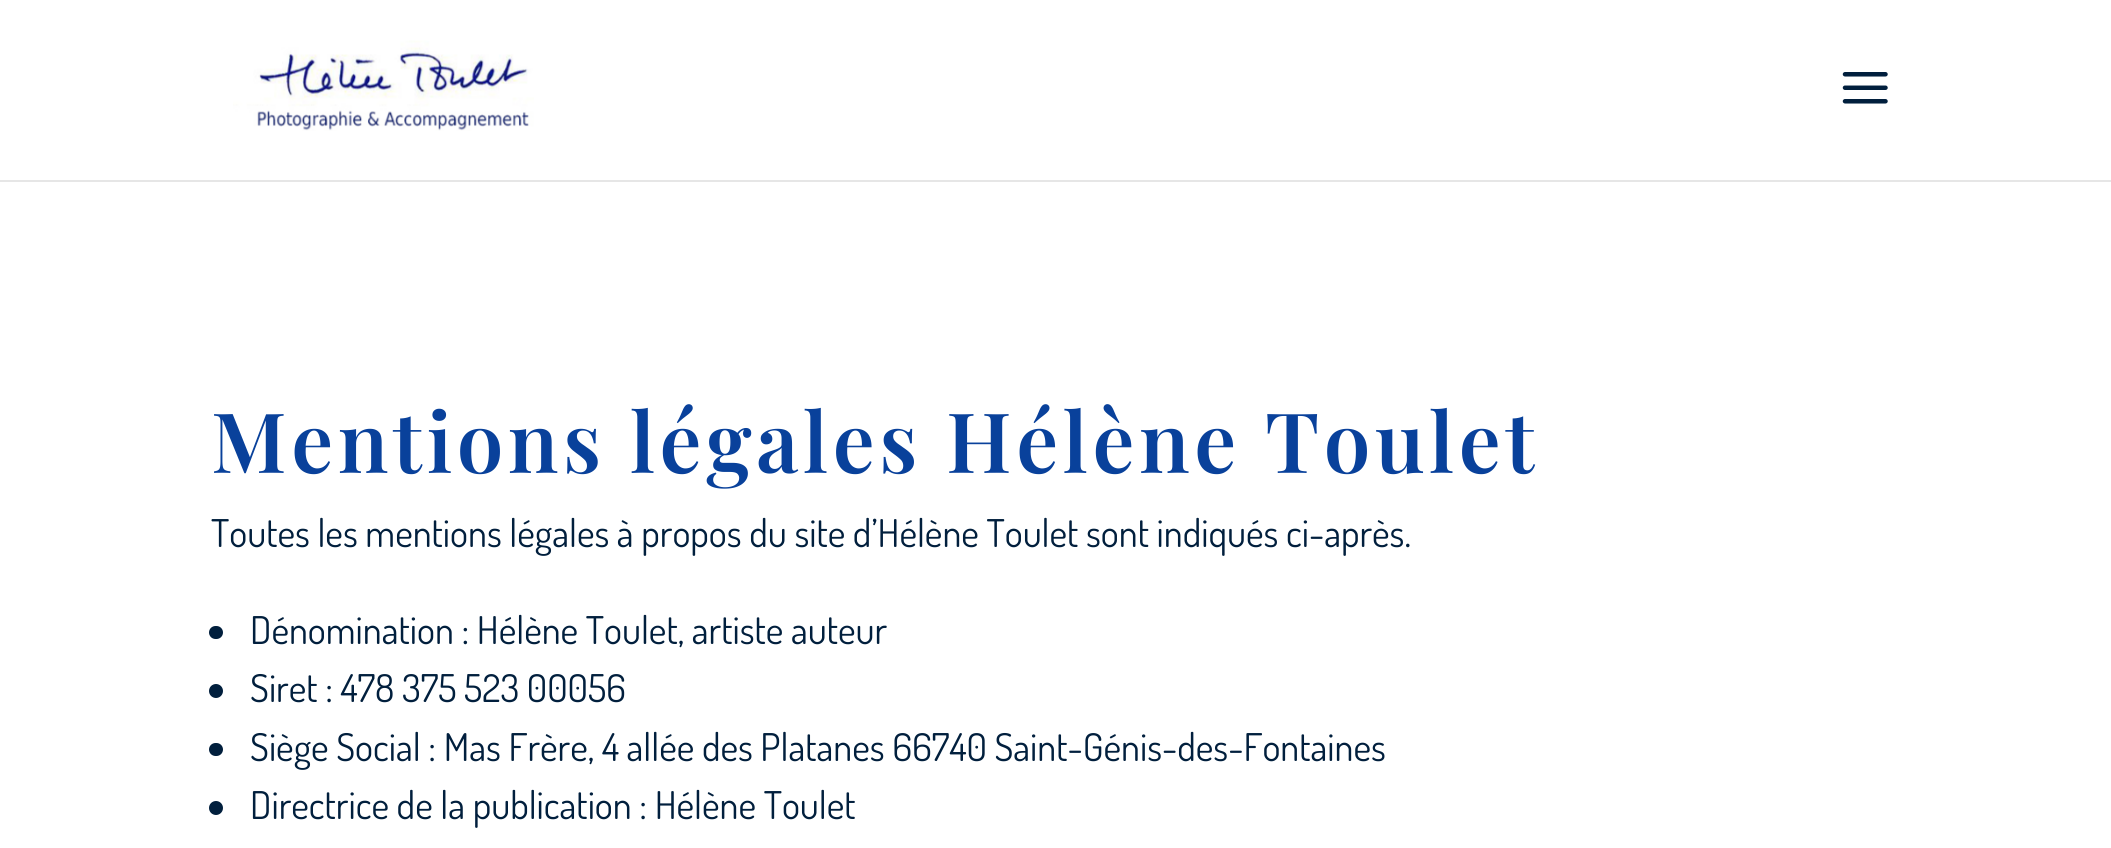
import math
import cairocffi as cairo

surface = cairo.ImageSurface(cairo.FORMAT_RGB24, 2111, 848)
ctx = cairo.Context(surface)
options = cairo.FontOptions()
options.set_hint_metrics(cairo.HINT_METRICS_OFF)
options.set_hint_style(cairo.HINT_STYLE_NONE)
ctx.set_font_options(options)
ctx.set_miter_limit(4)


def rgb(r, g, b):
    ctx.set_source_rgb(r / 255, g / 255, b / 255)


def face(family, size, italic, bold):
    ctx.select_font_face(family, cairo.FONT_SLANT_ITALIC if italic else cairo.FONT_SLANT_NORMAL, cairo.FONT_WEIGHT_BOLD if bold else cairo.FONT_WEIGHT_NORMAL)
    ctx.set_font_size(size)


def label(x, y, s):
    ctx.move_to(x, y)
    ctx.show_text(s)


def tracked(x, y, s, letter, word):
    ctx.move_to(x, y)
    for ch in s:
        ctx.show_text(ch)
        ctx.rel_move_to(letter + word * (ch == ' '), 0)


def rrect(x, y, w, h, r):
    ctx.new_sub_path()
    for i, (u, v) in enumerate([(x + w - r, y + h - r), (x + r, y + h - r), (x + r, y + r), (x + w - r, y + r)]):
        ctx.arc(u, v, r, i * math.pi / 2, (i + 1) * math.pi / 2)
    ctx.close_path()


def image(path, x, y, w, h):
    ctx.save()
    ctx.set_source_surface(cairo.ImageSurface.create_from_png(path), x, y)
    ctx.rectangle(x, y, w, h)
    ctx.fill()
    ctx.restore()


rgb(255, 255, 255)
ctx.paint()
rgb(230, 230, 230)
ctx.new_path()
ctx.move_to(0, 180)
ctx.line_to(0, 182)
ctx.line_to(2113, 182)
ctx.line_to(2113, 2)
ctx.line_to(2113, 180)
ctx.close_path()
ctx.fill()
image('image0.png', 233, 40, 301, 91)
image('image1.png', 1842, 72, 46, 32)
face('Playfair Display SemiBold', 83.25, 0, 0)
rgb(9, 65, 155)
tracked(211, 473, 'Mentions légales Hélène Toulet', 4.5, 0)
face('Dosis', 38.25, 0, 0)
rgb(1, 31, 61)
label(211, 547, 'Toutes les mentions légales à propos du site d’Hélène Toulet sont indiqués ci-après.')
rrect(209, 626, 14, 13, 6.5)
ctx.fill()
label(250, 644, 'Dénomination : Hélène Toulet, artiste auteur')
ctx.new_path()
ctx.arc(216, 691, 7, 0, 2 * math.pi)
ctx.fill()
label(250, 702, 'Siret : 478 375 523 00056')
rrect(209, 743, 14, 13, 6.5)
ctx.fill()
label(250, 761, 'Siège Social : Mas Frère, 4 allée des Platanes 66740 Saint-Génis-des-Fontaines')
ctx.new_path()
ctx.arc(216, 808, 7, 0, 2 * math.pi)
ctx.fill()
label(250, 819, 'Directrice de la publication : Hélène Toulet')
surface.write_to_png('render.png')
